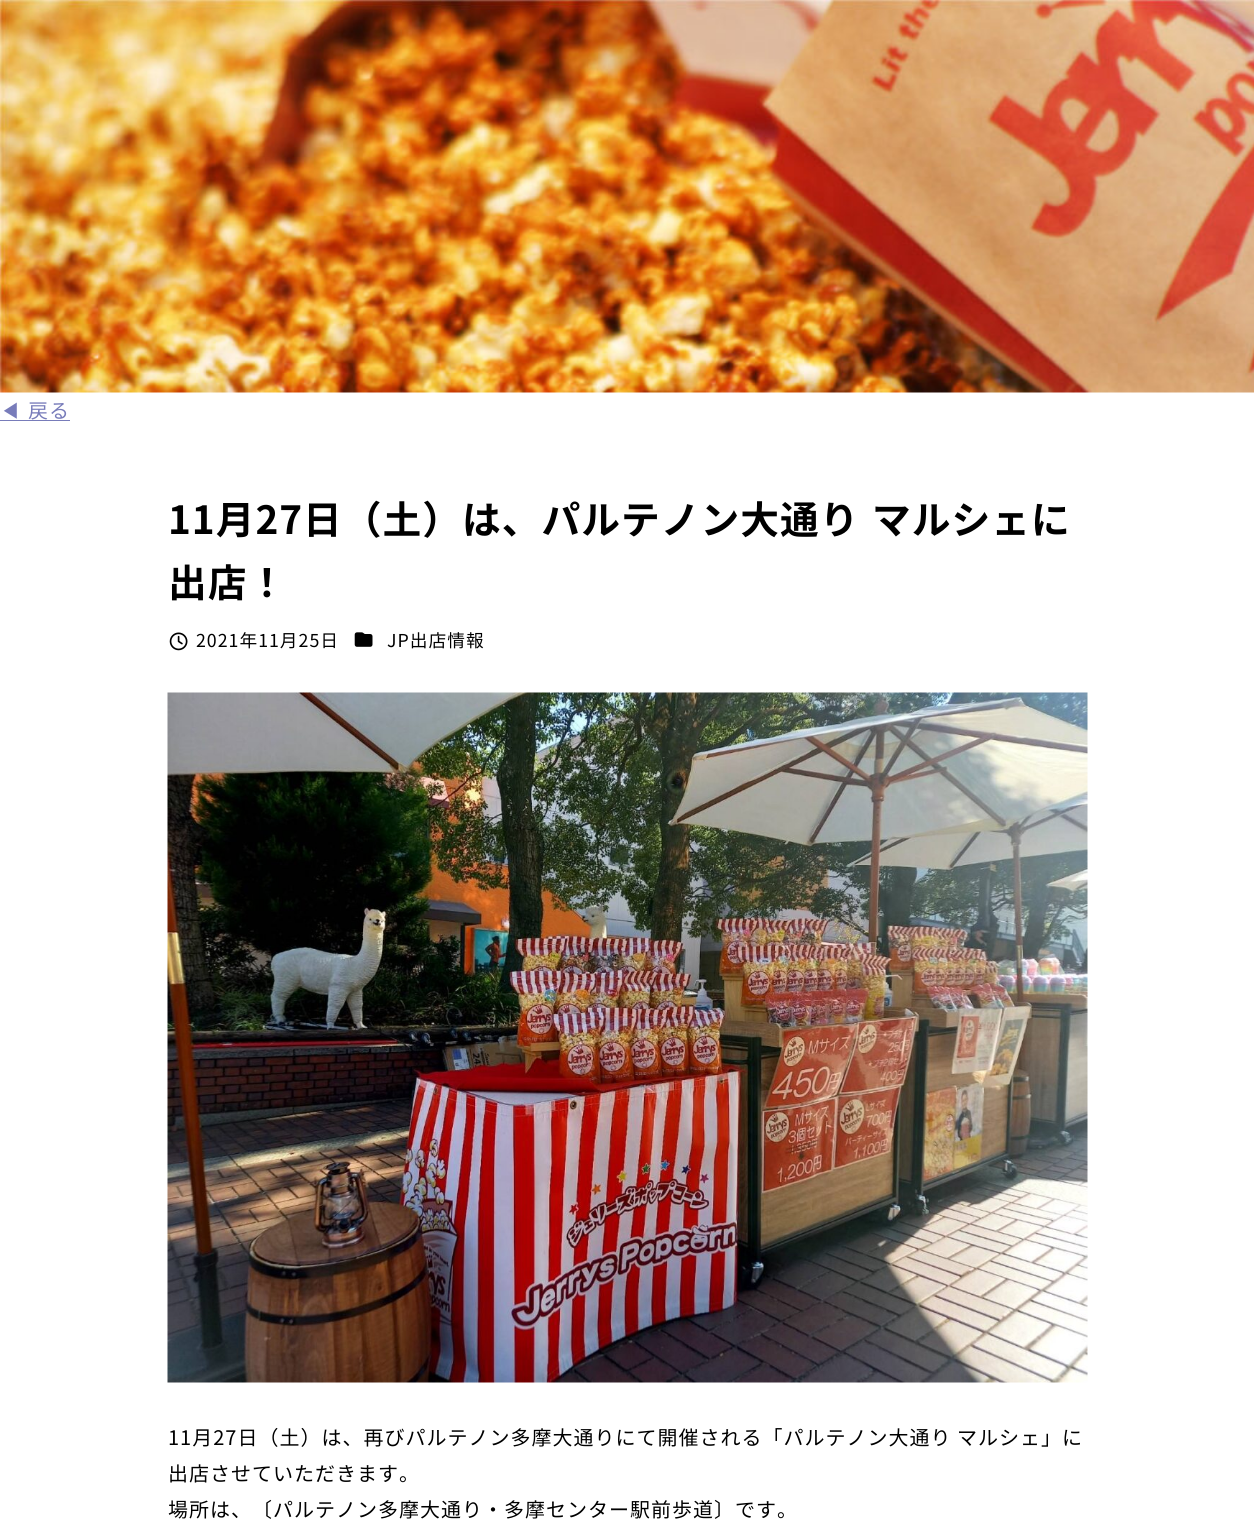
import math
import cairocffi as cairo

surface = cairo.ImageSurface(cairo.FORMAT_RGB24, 1254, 1526)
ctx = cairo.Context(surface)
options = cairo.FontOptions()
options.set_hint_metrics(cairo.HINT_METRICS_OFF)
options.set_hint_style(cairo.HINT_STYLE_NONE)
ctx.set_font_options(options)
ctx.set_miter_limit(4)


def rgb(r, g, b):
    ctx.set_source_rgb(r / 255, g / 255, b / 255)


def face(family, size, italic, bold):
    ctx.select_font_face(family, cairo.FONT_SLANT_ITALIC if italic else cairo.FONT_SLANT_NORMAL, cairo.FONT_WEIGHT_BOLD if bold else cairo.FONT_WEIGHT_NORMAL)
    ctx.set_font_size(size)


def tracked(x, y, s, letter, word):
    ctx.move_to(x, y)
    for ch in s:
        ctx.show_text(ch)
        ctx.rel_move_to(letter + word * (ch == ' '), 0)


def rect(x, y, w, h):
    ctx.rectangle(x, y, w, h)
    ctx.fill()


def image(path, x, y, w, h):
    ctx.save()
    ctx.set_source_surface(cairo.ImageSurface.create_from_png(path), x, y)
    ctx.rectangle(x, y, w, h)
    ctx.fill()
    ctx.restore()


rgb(255, 255, 255)
ctx.paint()
image('image0.png', 0, 0, 1254, 393)
face('WenQuanYi Zen Hei Medium', 20, 0, 0)
rgb(120, 124, 186)
tracked(0, 418, '◀', 1, 0)
face('Noto Sans JP', 20, 0, 0)
tracked(28, 418, '戻る', 1, 0)
rect(0, 420, 70, 1)
face('Noto Sans JP', 38.75, 0, 1)
rgb(0, 0, 0)
tracked(168, 534, '11月27日（土）は、パルテノン大通り', 1, 0)
tracked(872, 534, 'マルシェに', 1, 0)
tracked(168, 597, '出店！', 1, 0)
image('image1.png', 169, 632, 19, 19)
face('Noto Sans JP', 17.75, 0, 0)
tracked(196, 647, '2021年11月25日', 1, 0)
image('image2.png', 354, 632, 19, 15)
tracked(387, 647, 'JP出店情報', 1, 0)
image('image3.png', 167, 692, 921, 691)
face('Noto Sans JP', 20, 0, 0)
tracked(168, 1445, '11月27日（土）は、再びパルテノン多摩大通りにて開催される「パルテノン大通り', 1, 0)
tracked(957, 1445, 'マルシェ」に', 1, 0)
tracked(168, 1481, '出店させていただきます。', 1, 0)
tracked(168, 1517, '場所は、〔パルテノン多摩大通り・多摩センター駅前歩道〕です。', 1, 0)
surface.write_to_png('render.png')
